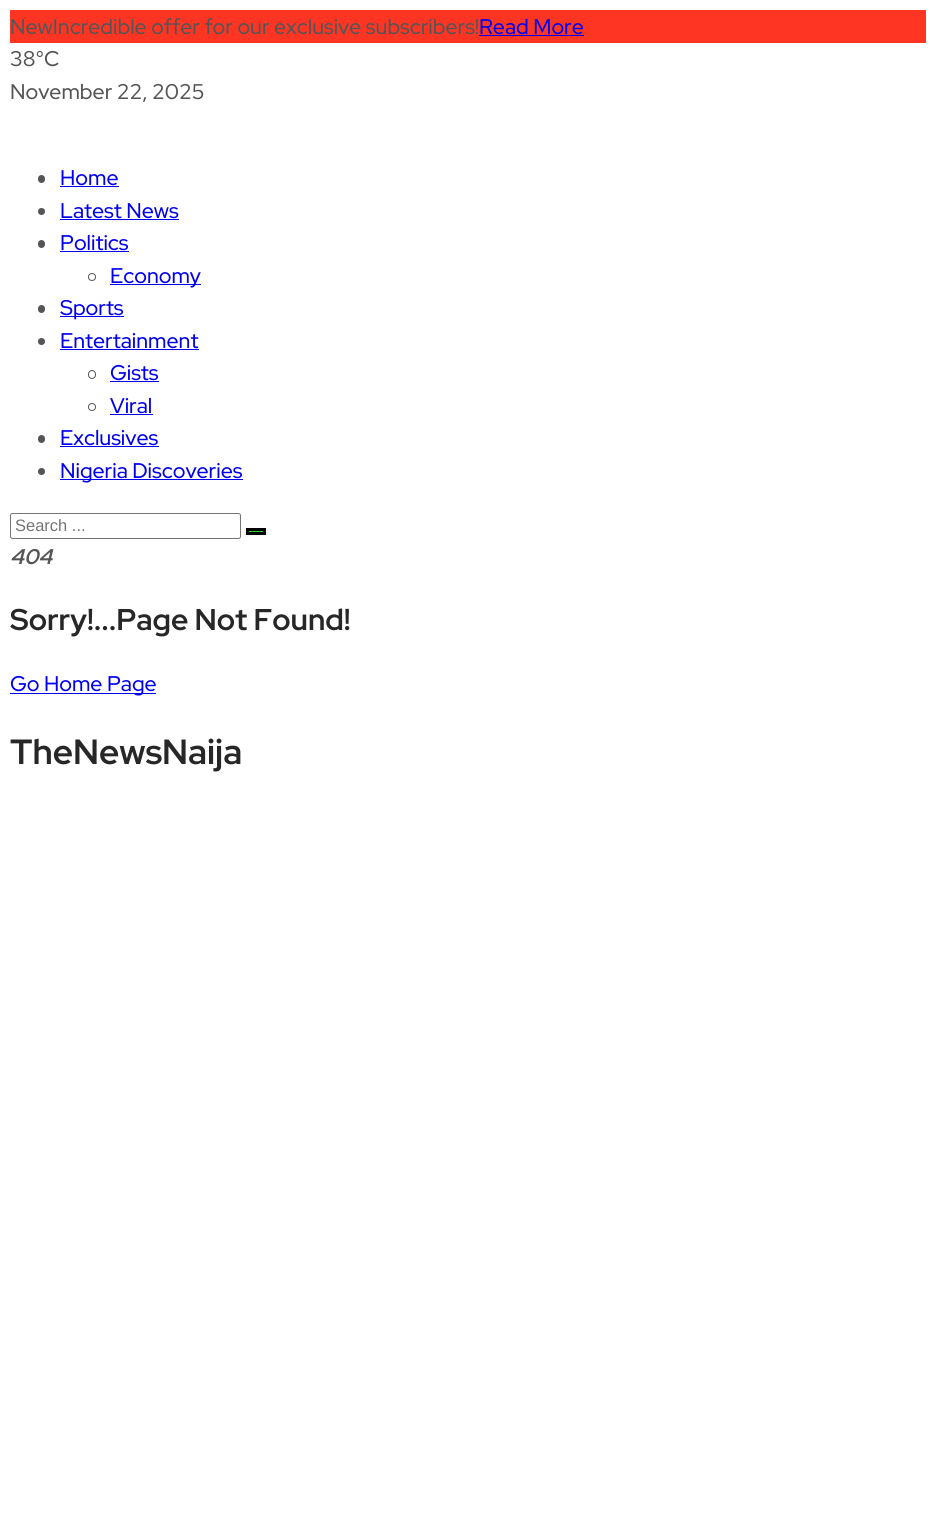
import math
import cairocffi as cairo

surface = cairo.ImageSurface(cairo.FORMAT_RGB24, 936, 1518)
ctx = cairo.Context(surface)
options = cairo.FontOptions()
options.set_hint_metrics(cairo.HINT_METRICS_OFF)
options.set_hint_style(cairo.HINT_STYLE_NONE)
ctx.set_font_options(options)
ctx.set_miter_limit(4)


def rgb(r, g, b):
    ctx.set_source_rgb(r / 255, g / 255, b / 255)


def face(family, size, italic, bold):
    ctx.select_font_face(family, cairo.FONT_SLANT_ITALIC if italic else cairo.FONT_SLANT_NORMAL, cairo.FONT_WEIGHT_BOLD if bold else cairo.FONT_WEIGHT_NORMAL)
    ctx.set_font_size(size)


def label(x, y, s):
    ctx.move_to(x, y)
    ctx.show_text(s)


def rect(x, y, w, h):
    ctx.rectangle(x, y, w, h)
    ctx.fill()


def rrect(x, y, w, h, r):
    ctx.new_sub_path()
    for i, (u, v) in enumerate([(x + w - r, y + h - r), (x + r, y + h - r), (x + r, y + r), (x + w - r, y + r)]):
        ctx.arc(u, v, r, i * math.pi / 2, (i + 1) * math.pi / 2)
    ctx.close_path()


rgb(255, 255, 255)
ctx.paint()
rgb(255, 53, 36)
rect(10, 10, 916, 33)
face('Red Hat Display Medium', 21.25, 0, 0)
rgb(85, 85, 85)
label(10, 34, 'NewIncredible offer for our exclusive subscribers!')
rgb(0, 0, 238)
label(479, 34, 'Read More')
rect(479, 35, 105, 1)
rgb(85, 85, 85)
label(10, 66, '38°C')
label(10, 99, 'November 22, 2025')
rrect(38, 175, 7, 8, 3.5)
ctx.fill()
rgb(0, 0, 238)
label(60, 185, 'Home')
rect(60, 186, 59, 1)
rgb(85, 85, 85)
ctx.new_path()
ctx.arc(41.5, 211.5, 3.5, 0, 2 * math.pi)
ctx.fill()
rgb(0, 0, 238)
label(60, 218, 'Latest News')
rect(60, 219, 119, 1)
rgb(85, 85, 85)
rrect(38, 240, 7, 8, 3.5)
ctx.fill()
rgb(0, 0, 238)
label(60, 250, 'Politics')
rect(60, 251, 69, 1)
ctx.new_path()
ctx.arc(92, 277, 3.5, 0, 2 * math.pi)
rgb(85, 85, 85)
ctx.set_line_width(1)
ctx.stroke()
rgb(0, 0, 238)
rect(110, 284, 91, 1)
label(110, 283, 'Economy')
rgb(85, 85, 85)
rrect(38, 305, 7, 8, 3.5)
ctx.fill()
rgb(0, 0, 238)
rect(60, 316, 64, 1)
label(60, 315, 'Sports')
rgb(85, 85, 85)
ctx.new_path()
ctx.arc(41.5, 341.5, 3.5, 0, 2 * math.pi)
ctx.fill()
rgb(0, 0, 238)
label(60, 348, 'Entertainment')
rect(60, 349, 139, 1)
rrect(88.5, 370.5, 7, 8, 3.5)
rgb(85, 85, 85)
ctx.stroke()
rgb(0, 0, 238)
label(110, 380, 'Gists')
rect(110, 381, 49, 1)
ctx.new_path()
ctx.arc(92, 407, 3.5, 0, 2 * math.pi)
rgb(85, 85, 85)
ctx.stroke()
rgb(0, 0, 238)
label(110, 413, 'Viral')
rect(110, 414, 43, 1)
rgb(85, 85, 85)
rrect(38, 435, 7, 8, 3.5)
ctx.fill()
rgb(0, 0, 238)
label(60, 445, 'Exclusives')
rect(60, 446, 99, 1)
rgb(85, 85, 85)
ctx.new_path()
ctx.arc(41.5, 471.5, 3.5, 0, 2 * math.pi)
ctx.fill()
rgb(0, 0, 238)
rect(60, 479, 183, 1)
label(60, 478, 'Nigeria Discoveries')
rrect(10.5, 513.5, 230, 25, 2)
rgb(118, 118, 118)
ctx.stroke()
face('Liberation Sans', 16.5, 0, 0)
rgb(117, 117, 117)
label(15, 531, 'Search ...')
rgb(29, 209, 53)
ctx.rectangle(247.5, 529.5, 17, 4)
ctx.fill_preserve()
rgb(0, 0, 0)
ctx.set_line_width(3)
ctx.stroke()
face('Red Hat Display', 21.25, 1, 1)
rgb(85, 85, 85)
label(10, 564, '404')
face('Red Hat Display', 30, 0, 1)
rgb(39, 39, 39)
label(10, 630, 'Sorry!...Page Not Found!')
rgb(0, 0, 238)
rect(10, 693, 146, 1)
face('Red Hat Display Medium', 21.25, 0, 0)
label(10, 691, 'Go Home Page')
face('Red Hat Display', 35, 0, 1)
rgb(39, 39, 39)
label(10, 764, 'TheNewsNaija')
surface.write_to_png('render.png')
